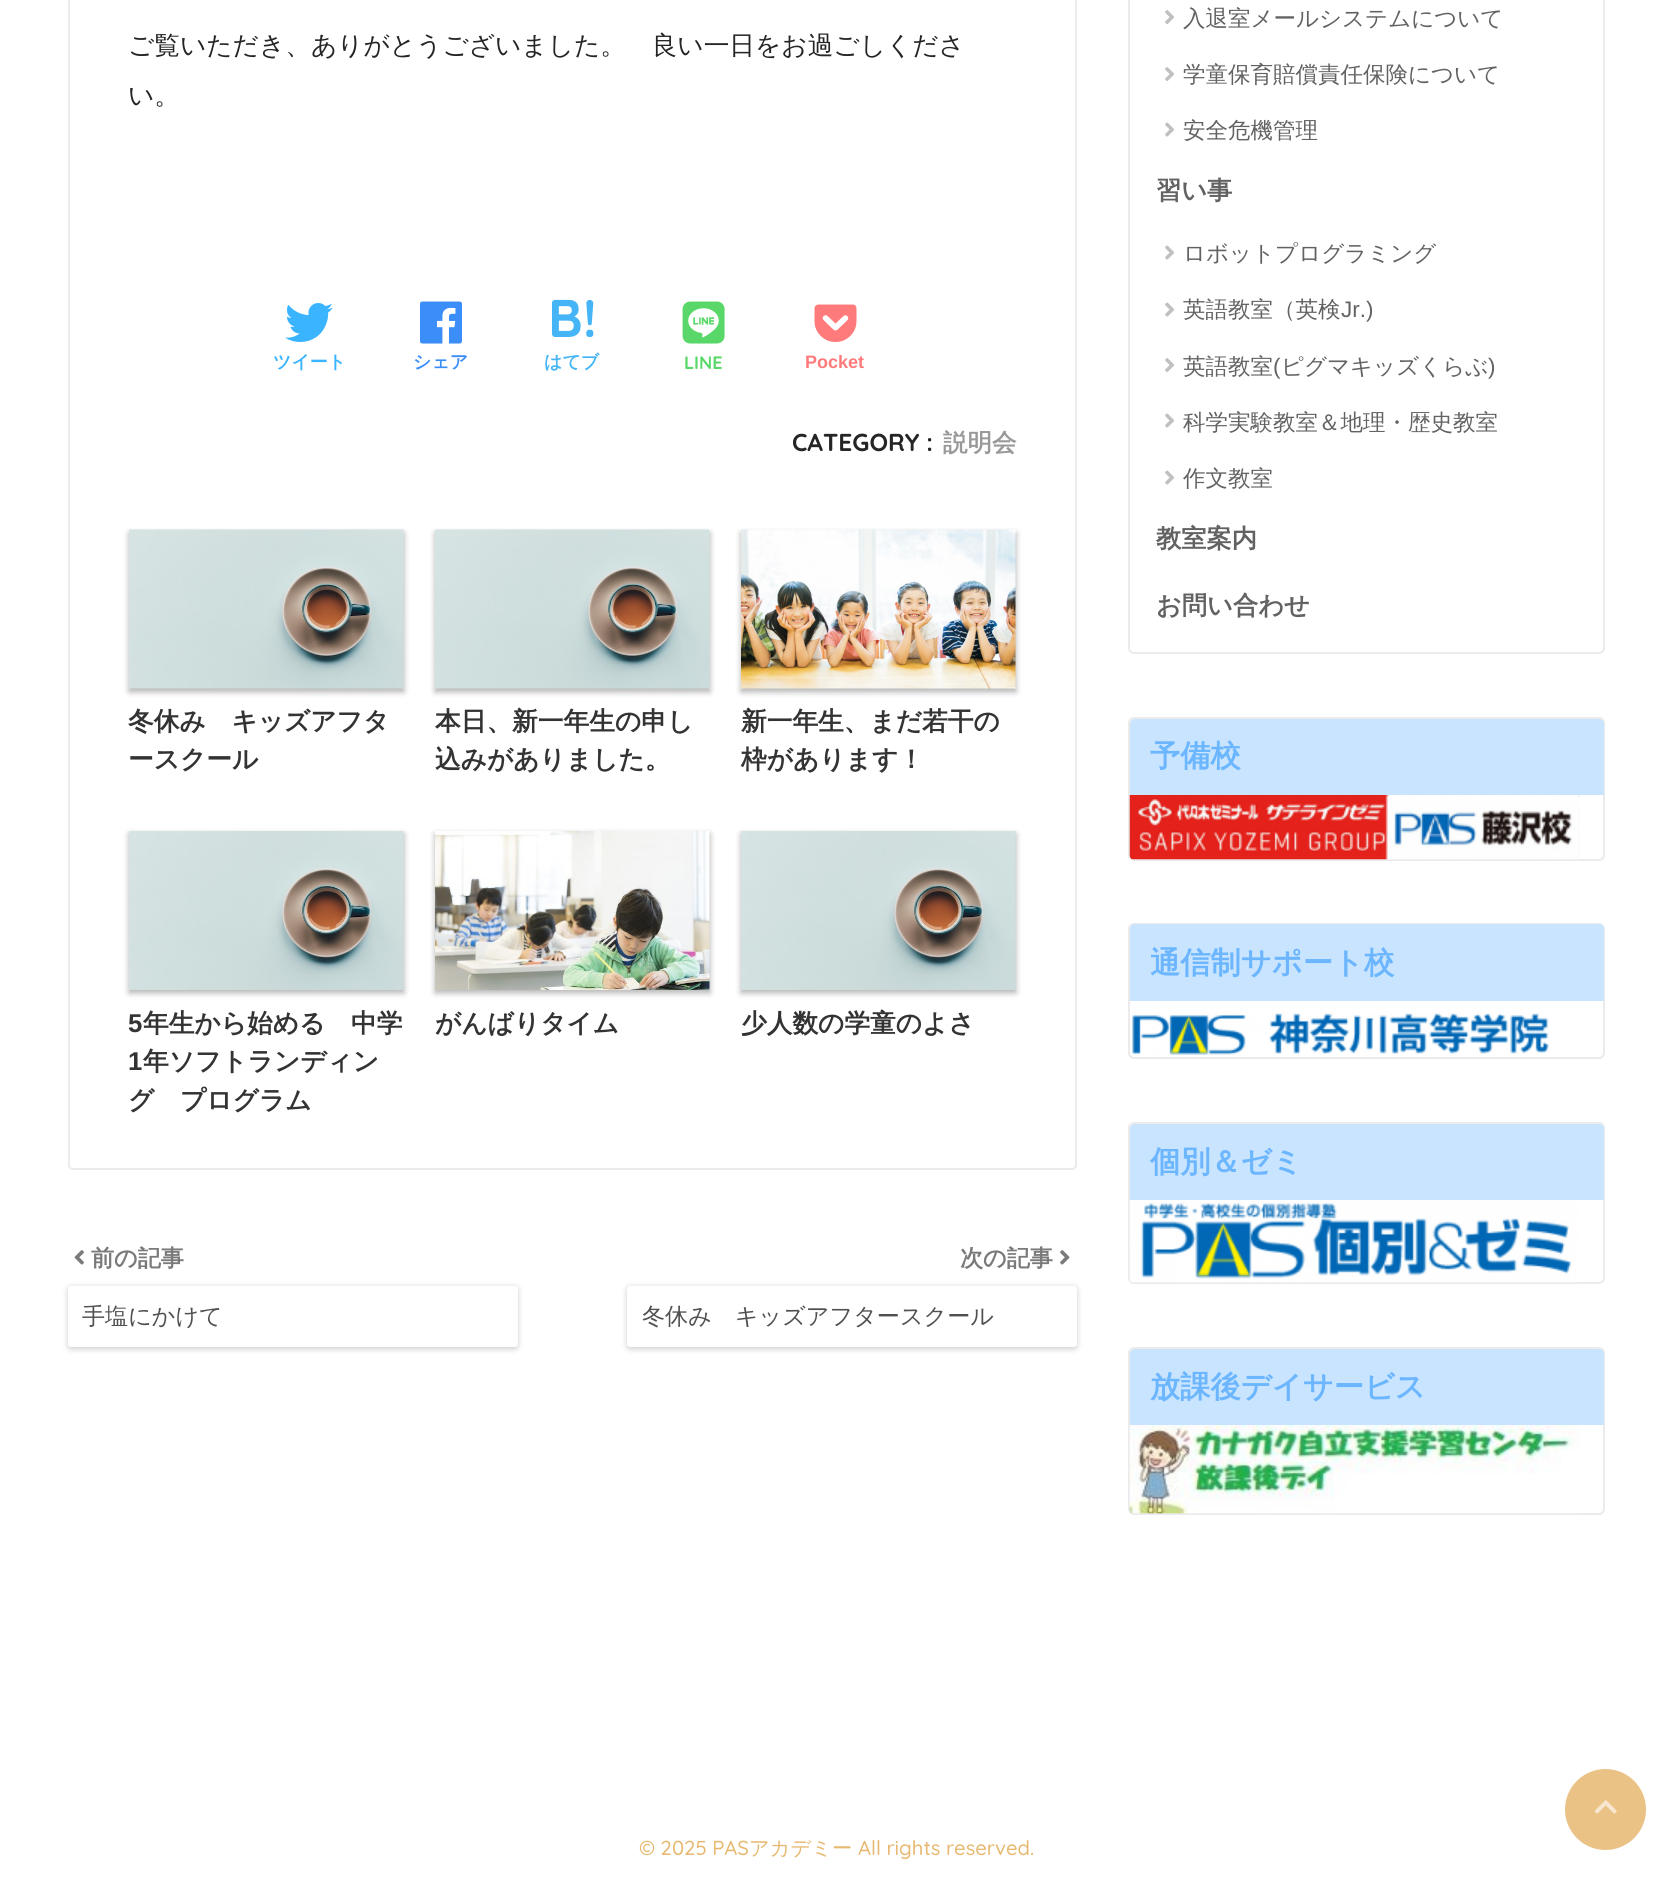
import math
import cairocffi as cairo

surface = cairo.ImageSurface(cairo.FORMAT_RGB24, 1672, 1879)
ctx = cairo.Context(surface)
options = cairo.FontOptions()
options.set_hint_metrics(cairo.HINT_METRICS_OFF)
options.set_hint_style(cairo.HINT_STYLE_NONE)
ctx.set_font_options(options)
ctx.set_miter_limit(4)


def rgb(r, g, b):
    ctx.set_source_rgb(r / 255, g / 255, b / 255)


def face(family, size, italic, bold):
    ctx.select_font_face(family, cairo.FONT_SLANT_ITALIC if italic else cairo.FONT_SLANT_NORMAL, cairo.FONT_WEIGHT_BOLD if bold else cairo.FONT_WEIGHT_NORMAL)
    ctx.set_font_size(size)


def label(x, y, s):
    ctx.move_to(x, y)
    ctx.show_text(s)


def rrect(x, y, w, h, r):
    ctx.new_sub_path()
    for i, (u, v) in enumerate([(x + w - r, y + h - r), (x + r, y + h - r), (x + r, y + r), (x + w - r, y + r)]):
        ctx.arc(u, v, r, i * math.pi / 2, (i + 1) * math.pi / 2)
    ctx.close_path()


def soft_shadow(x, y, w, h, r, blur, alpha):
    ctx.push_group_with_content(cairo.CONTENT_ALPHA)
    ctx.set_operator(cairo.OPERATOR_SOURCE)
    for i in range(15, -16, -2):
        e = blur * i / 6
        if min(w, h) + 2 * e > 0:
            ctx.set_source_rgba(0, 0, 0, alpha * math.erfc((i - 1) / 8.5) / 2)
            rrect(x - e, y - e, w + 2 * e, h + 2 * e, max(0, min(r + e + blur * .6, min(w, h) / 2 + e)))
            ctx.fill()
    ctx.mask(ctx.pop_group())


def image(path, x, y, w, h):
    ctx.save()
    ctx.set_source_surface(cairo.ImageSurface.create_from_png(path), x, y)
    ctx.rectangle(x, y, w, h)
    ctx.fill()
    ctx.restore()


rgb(255, 255, 255)
ctx.paint()
rrect(69, -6, 1007, 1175, 4)
rgb(235, 235, 235)
ctx.stroke()
face('WenQuanYi Zen Hei Medium', 25.7, 0, 0)
rgb(37, 37, 37)
label(128, 54, 'ご覧いただき、ありがとうございました。　良い一日をお過ごしくださ')
label(128, 104, 'い。')
image('image0.png', 285, 303, 48, 39)
face('WenQuanYi Zen Hei', 18, 0, 1)
rgb(58, 180, 255)
label(273, 368, 'ツイート')
image('image1.png', 420, 301, 42, 43)
rgb(59, 141, 247)
label(413, 368, 'シェア')
face('Quicksand', 53, 0, 1)
rgb(69, 181, 247)
label(548, 337, 'B!')
face('WenQuanYi Zen Hei', 18, 0, 1)
label(544, 368, 'はてブ')
image('image2.png', 682, 301, 43, 43)
face('Quicksand', 18, 0, 1)
rgb(89, 216, 105)
label(684, 369, 'LINE')
image('image3.png', 814, 304, 43, 38)
face('Liberation Sans', 18, 0, 1)
rgb(255, 123, 123)
label(805, 368, 'Pocket')
face('Quicksand', 24.5, 0, 1)
rgb(37, 37, 37)
label(792, 451, 'CATEGORY :')
face('WenQuanYi Zen Hei', 24.5, 0, 1)
rgb(153, 153, 153)
label(943, 451, '説明会')
rgb(0, 0, 0)
soft_shadow(129, 533, 275, 159, 0, 3, 0.3)
image('image4.png', 129, 529, 275, 160)
face('WenQuanYi Zen Hei', 25.7, 0, 1)
rgb(51, 51, 51)
label(128, 730, '冬休み　キッズアフタ')
label(128, 768, 'ースクール')
rgb(0, 0, 0)
soft_shadow(435, 533, 275, 159, 0, 3, 0.3)
image('image4.png', 435, 529, 275, 160)
rgb(51, 51, 51)
label(435, 730, '本日、新一年生の申し')
label(435, 768, '込みがありました。')
rgb(0, 0, 0)
soft_shadow(741, 533, 275, 159, 0, 3, 0.3)
image('image5.png', 741, 529, 275, 160)
rgb(51, 51, 51)
label(741, 730, '新一年生、まだ若干の')
label(741, 768, '枠があります！')
rgb(0, 0, 0)
soft_shadow(129, 834, 275, 159, 0, 3, 0.3)
image('image6.png', 129, 831, 275, 159)
face('Liberation Sans', 25.7, 0, 1)
rgb(51, 51, 51)
label(128, 1032, '5')
face('WenQuanYi Zen Hei', 25.7, 0, 1)
label(143, 1032, '年生から始める　中学')
face('Liberation Sans', 25.7, 0, 1)
label(128, 1070, '1')
face('WenQuanYi Zen Hei', 25.7, 0, 1)
label(143, 1070, '年ソフトランディン')
label(128, 1109, 'グ　プログラム')
rgb(0, 0, 0)
soft_shadow(435, 834, 275, 159, 0, 3, 0.3)
image('image7.png', 435, 831, 275, 159)
rgb(51, 51, 51)
label(435, 1032, 'がんばりタイム')
rgb(0, 0, 0)
soft_shadow(741, 834, 275, 159, 0, 3, 0.3)
image('image6.png', 741, 831, 275, 159)
rgb(51, 51, 51)
label(741, 1032, '少人数の学童のよさ')
image('image8.png', 74, 1250, 10, 15)
face('WenQuanYi Zen Hei', 23.1, 0, 1)
rgb(122, 122, 122)
label(91, 1266, '前の記事')
rgb(0, 0, 0)
soft_shadow(68, 1287, 450, 62, 3, 3, 0.2)
rgb(255, 255, 255)
rrect(68, 1286, 450, 61, 3)
ctx.fill()
face('WenQuanYi Zen Hei Medium', 23.1, 0, 0)
rgb(80, 80, 80)
label(82, 1324, '手塩にかけて')
face('WenQuanYi Zen Hei', 23.1, 0, 1)
rgb(122, 122, 122)
label(960, 1266, '次の記事')
image('image9.png', 1060, 1250, 10, 15)
rgb(0, 0, 0)
soft_shadow(627, 1287, 450, 62, 3, 3, 0.2)
rgb(255, 255, 255)
rrect(627, 1286, 450, 61, 3)
ctx.fill()
face('WenQuanYi Zen Hei Medium', 23.1, 0, 0)
rgb(80, 80, 80)
label(642, 1324, '冬休み　キッズアフタースクール')
rrect(1129, -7, 475, 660, 5)
rgb(235, 235, 235)
ctx.stroke()
image('image10.png', 1165, 10, 9, 14)
face('WenQuanYi Zen Hei Medium', 22.5, 0, 0)
rgb(98, 98, 98)
label(1183, 26, '入退室メールシステムについて')
image('image10.png', 1165, 67, 9, 14)
label(1183, 82, '学童保育賠償責任保険について')
image('image11.png', 1165, 122, 10, 15)
label(1183, 138, '安全危機管理')
face('WenQuanYi Zen Hei', 25.25, 0, 1)
label(1156, 199, '習い事')
image('image11.png', 1165, 245, 10, 15)
face('WenQuanYi Zen Hei Medium', 22.5, 0, 0)
label(1183, 261, 'ロボットプログラミング')
image('image11.png', 1165, 302, 10, 15)
label(1183, 317, '英語教室（英検')
face('Liberation Sans', 22.5, 0, 0)
label(1341, 317, 'Jr.)')
image('image10.png', 1165, 358, 9, 14)
face('WenQuanYi Zen Hei Medium', 22.5, 0, 0)
label(1183, 374, '英語教室')
face('Liberation Sans', 22.5, 0, 0)
label(1273, 374, '(')
face('WenQuanYi Zen Hei Medium', 22.5, 0, 0)
label(1281, 374, 'ピグマキッズくらぶ')
face('Liberation Sans', 22.5, 0, 0)
label(1488, 374, ')')
image('image11.png', 1165, 413, 10, 15)
face('WenQuanYi Zen Hei Medium', 22.5, 0, 0)
label(1183, 430, '科学実験教室＆地理・歴史教室')
image('image11.png', 1165, 470, 10, 15)
label(1183, 486, '作文教室')
face('WenQuanYi Zen Hei', 25.25, 0, 1)
label(1156, 547, '教室案内')
label(1156, 614, 'お問い合わせ')
rrect(1129, 718, 475, 142, 5)
rgb(235, 235, 235)
ctx.stroke()
rgb(200, 228, 255)
ctx.new_path()
ctx.move_to(1135, 719)
ctx.line_to(1599, 719)
ctx.curve_to(1602, 719, 1604, 721, 1604, 724)
ctx.line_to(1604, 795)
ctx.line_to(1130, 795)
ctx.line_to(1130, 724)
ctx.curve_to(1130, 721, 1132, 719, 1135, 719)
ctx.close_path()
ctx.fill()
face('WenQuanYi Zen Hei', 30.25, 0, 1)
rgb(107, 182, 255)
label(1150, 766, '予備校')
image('image12.png', 1129, 795, 451, 65)
rrect(1129, 924, 475, 134, 5)
rgb(235, 235, 235)
ctx.stroke()
rgb(200, 228, 255)
ctx.new_path()
ctx.move_to(1135, 924)
ctx.line_to(1599, 924)
ctx.curve_to(1602, 924, 1604, 926, 1604, 929)
ctx.line_to(1604, 1001)
ctx.line_to(1130, 1001)
ctx.line_to(1130, 929)
ctx.curve_to(1130, 926, 1132, 924, 1135, 924)
ctx.close_path()
ctx.fill()
rgb(107, 182, 255)
label(1150, 973, '通信制サポート校')
image('image13.png', 1131, 1012, 418, 43)
rrect(1129, 1123, 475, 160, 5)
rgb(235, 235, 235)
ctx.stroke()
rgb(200, 228, 255)
ctx.new_path()
ctx.move_to(1135, 1124)
ctx.line_to(1599, 1124)
ctx.curve_to(1602, 1124, 1604, 1126, 1604, 1129)
ctx.line_to(1604, 1200)
ctx.line_to(1130, 1200)
ctx.line_to(1130, 1129)
ctx.curve_to(1130, 1126, 1132, 1124, 1135, 1124)
ctx.close_path()
ctx.fill()
rgb(107, 182, 255)
label(1150, 1172, '個別＆ゼミ')
image('image14.png', 1129, 1200, 450, 83)
rrect(1129, 1348, 475, 166, 5)
rgb(235, 235, 235)
ctx.stroke()
rgb(200, 228, 255)
ctx.new_path()
ctx.move_to(1135, 1349)
ctx.line_to(1599, 1349)
ctx.curve_to(1602, 1349, 1604, 1351, 1604, 1354)
ctx.line_to(1604, 1425)
ctx.line_to(1130, 1425)
ctx.line_to(1130, 1354)
ctx.curve_to(1130, 1351, 1132, 1349, 1135, 1349)
ctx.close_path()
ctx.fill()
rgb(107, 182, 255)
label(1150, 1397, '放課後デイサービス')
image('image15.png', 1129, 1425, 450, 89)
face('Quicksand Medium', 20.25, 0, 0)
rgb(231, 184, 112)
label(639, 1855, '© 2025 PAS')
face('WenQuanYi Zen Hei Medium', 20.25, 0, 0)
label(749, 1855, 'アカデミー')
face('Quicksand Medium', 20.25, 0, 0)
label(858, 1855, 'All rights reserved.')
rgb(235, 194, 133)
ctx.new_path()
ctx.arc(1605.5, 1809.5, 40.5, 0, 2 * math.pi)
ctx.fill()
image('image16.png', 1594, 1800, 23, 14)
surface.write_to_png('render.png')
